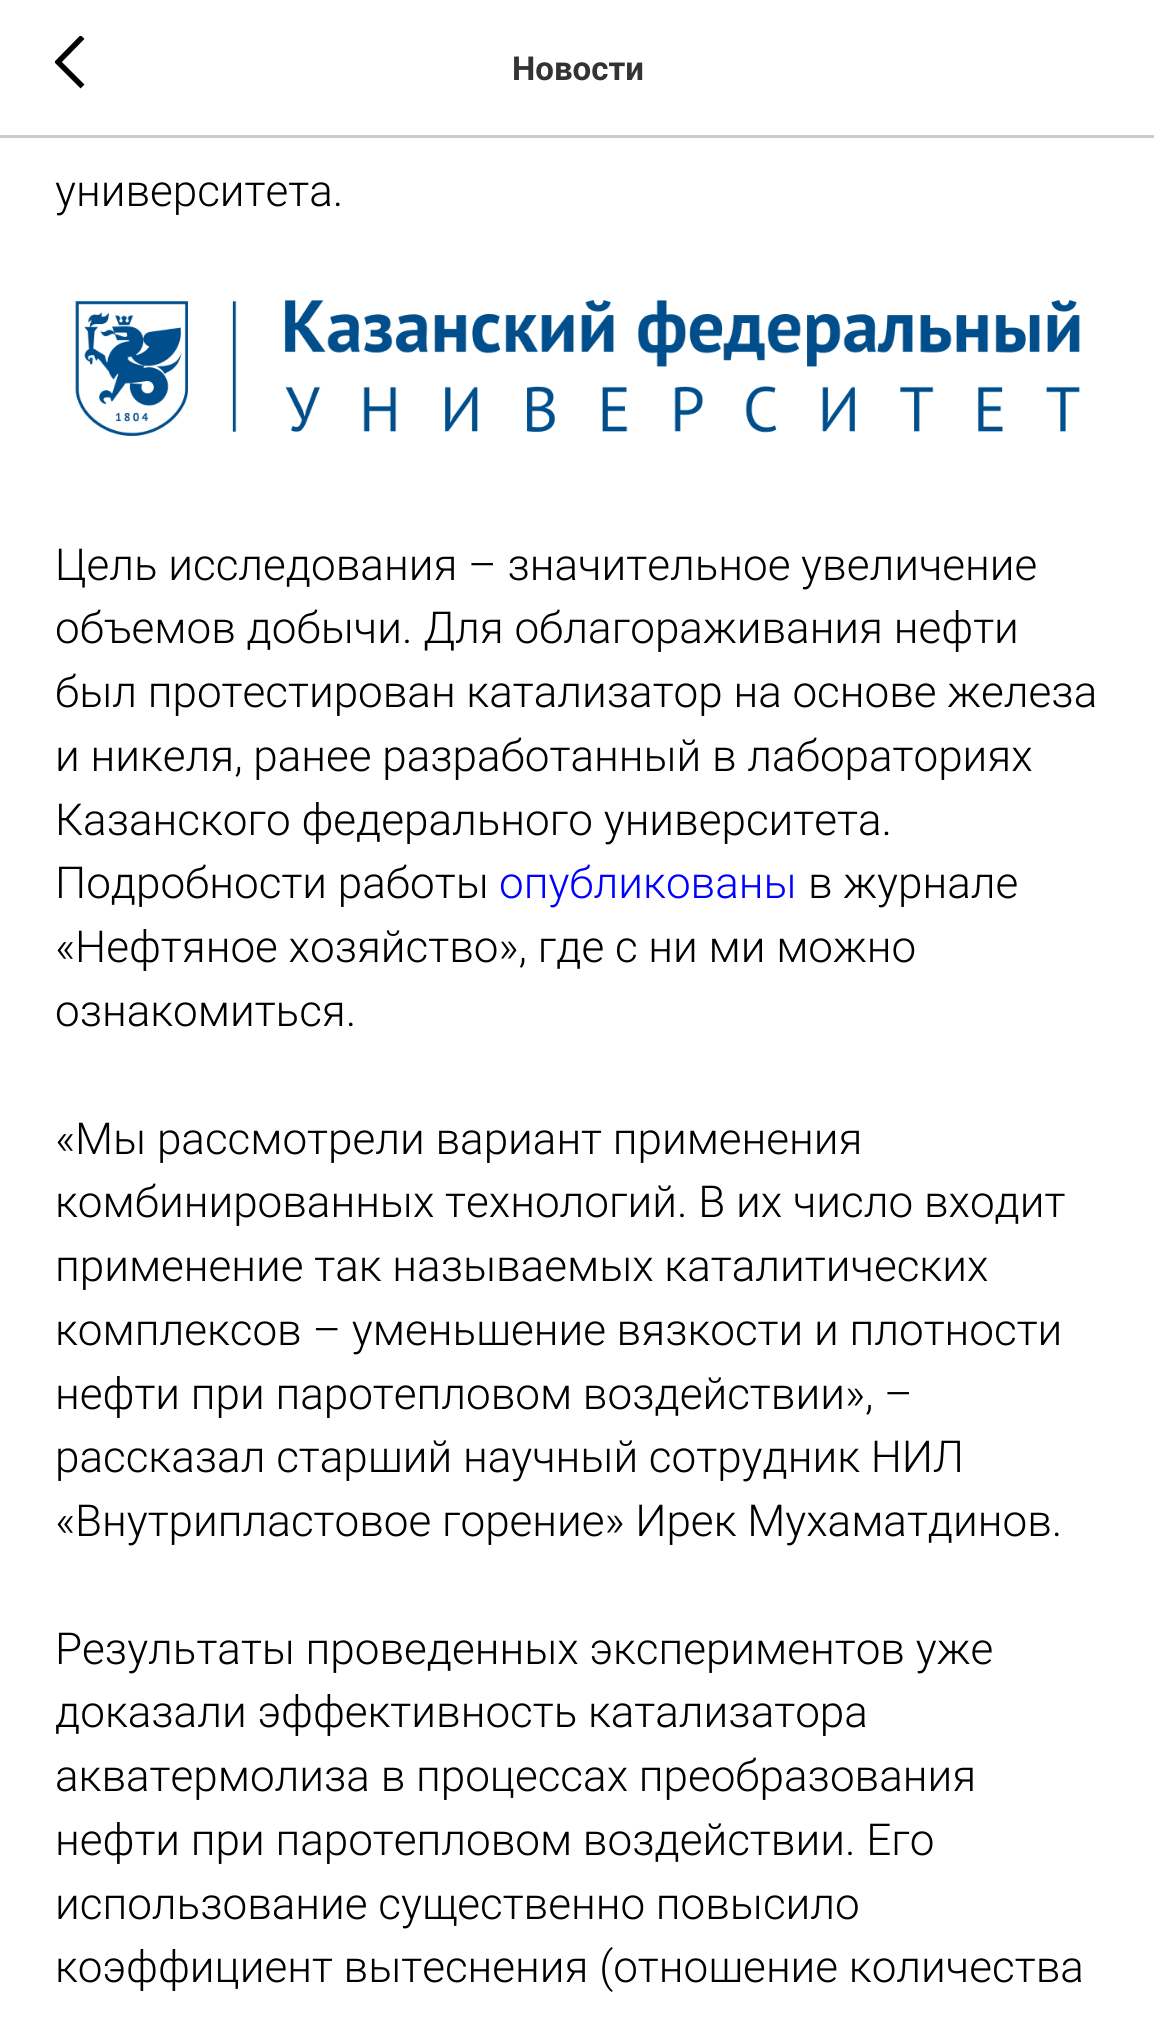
import math
import cairocffi as cairo

surface = cairo.ImageSurface(cairo.FORMAT_RGB24, 1154, 2029)
ctx = cairo.Context(surface)
options = cairo.FontOptions()
options.set_hint_metrics(cairo.HINT_METRICS_OFF)
options.set_hint_style(cairo.HINT_STYLE_NONE)
ctx.set_font_options(options)
ctx.set_miter_limit(4)


def rgb(r, g, b):
    ctx.set_source_rgb(r / 255, g / 255, b / 255)


def face(family, size, italic, bold):
    ctx.select_font_face(family, cairo.FONT_SLANT_ITALIC if italic else cairo.FONT_SLANT_NORMAL, cairo.FONT_WEIGHT_BOLD if bold else cairo.FONT_WEIGHT_NORMAL)
    ctx.set_font_size(size)


def label(x, y, s):
    ctx.move_to(x, y)
    ctx.show_text(s)


def rect(x, y, w, h):
    ctx.rectangle(x, y, w, h)
    ctx.fill()


def image(path, x, y, w, h):
    ctx.save()
    ctx.set_source_surface(cairo.ImageSurface.create_from_png(path), x, y)
    ctx.rectangle(x, y, w, h)
    ctx.fill()
    ctx.restore()


rgb(255, 255, 255)
ctx.paint()
rgb(204, 204, 204)
rect(0, 135, 1154, 3)
ctx.save()
ctx.rectangle(55, 36, 30, 55)
ctx.clip()
ctx.new_path()
ctx.move_to(82.5, 86.5)
ctx.line_to(58, 62)
ctx.line_to(82.5, 37)
rgb(0, 0, 0)
ctx.set_line_width(5.5)
ctx.stroke()
ctx.restore()
face('Roboto', 33, 0, 1)
rgb(51, 51, 51)
label(512, 80, 'Новости')
face('Roboto Light', 44, 0, 0)
rgb(0, 0, 0)
label(55, 206, 'университета.')
image('image0.png', 75, 300, 1005, 137)
label(55, 580, 'Цель исследования – значительное увеличение')
label(55, 643, 'объемов добычи. Для облагораживания нефти')
label(55, 707, 'был протестирован катализатор на основе железа')
label(55, 771, 'и никеля, ранее разработанный в лабораториях')
label(55, 835, 'Казанского федерального университета.')
label(55, 898, 'Подробности работы')
rgb(0, 0, 255)
label(499, 898, 'опубликованы')
rgb(0, 0, 0)
label(808, 898, 'в журнале')
label(55, 962, '«Нефтяное хозяйство», где с ни ми можно')
label(55, 1026, 'ознакомиться.')
label(55, 1154, '«Мы рассмотрели вариант применения')
label(55, 1217, 'комбинированных технологий. В их число входит')
label(55, 1281, 'применение так называемых каталитических')
label(55, 1345, 'комплексов – уменьшение вязкости и плотности')
label(55, 1409, 'нефти при паротепловом воздействии», –')
label(55, 1472, 'рассказал старший научный сотрудник НИЛ')
label(55, 1536, '«Внутрипластовое горение» Ирек Мухаматдинов.')
label(55, 1664, 'Результаты проведенных экспериментов уже')
label(55, 1727, 'доказали эффективность катализатора')
label(55, 1791, 'акватермолиза в процессах преобразования')
label(55, 1855, 'нефти при паротепловом воздействии. Его')
label(55, 1919, 'использование существенно повысило')
label(55, 1982, 'коэффициент вытеснения (отношение количества')
surface.write_to_png('render.png')
